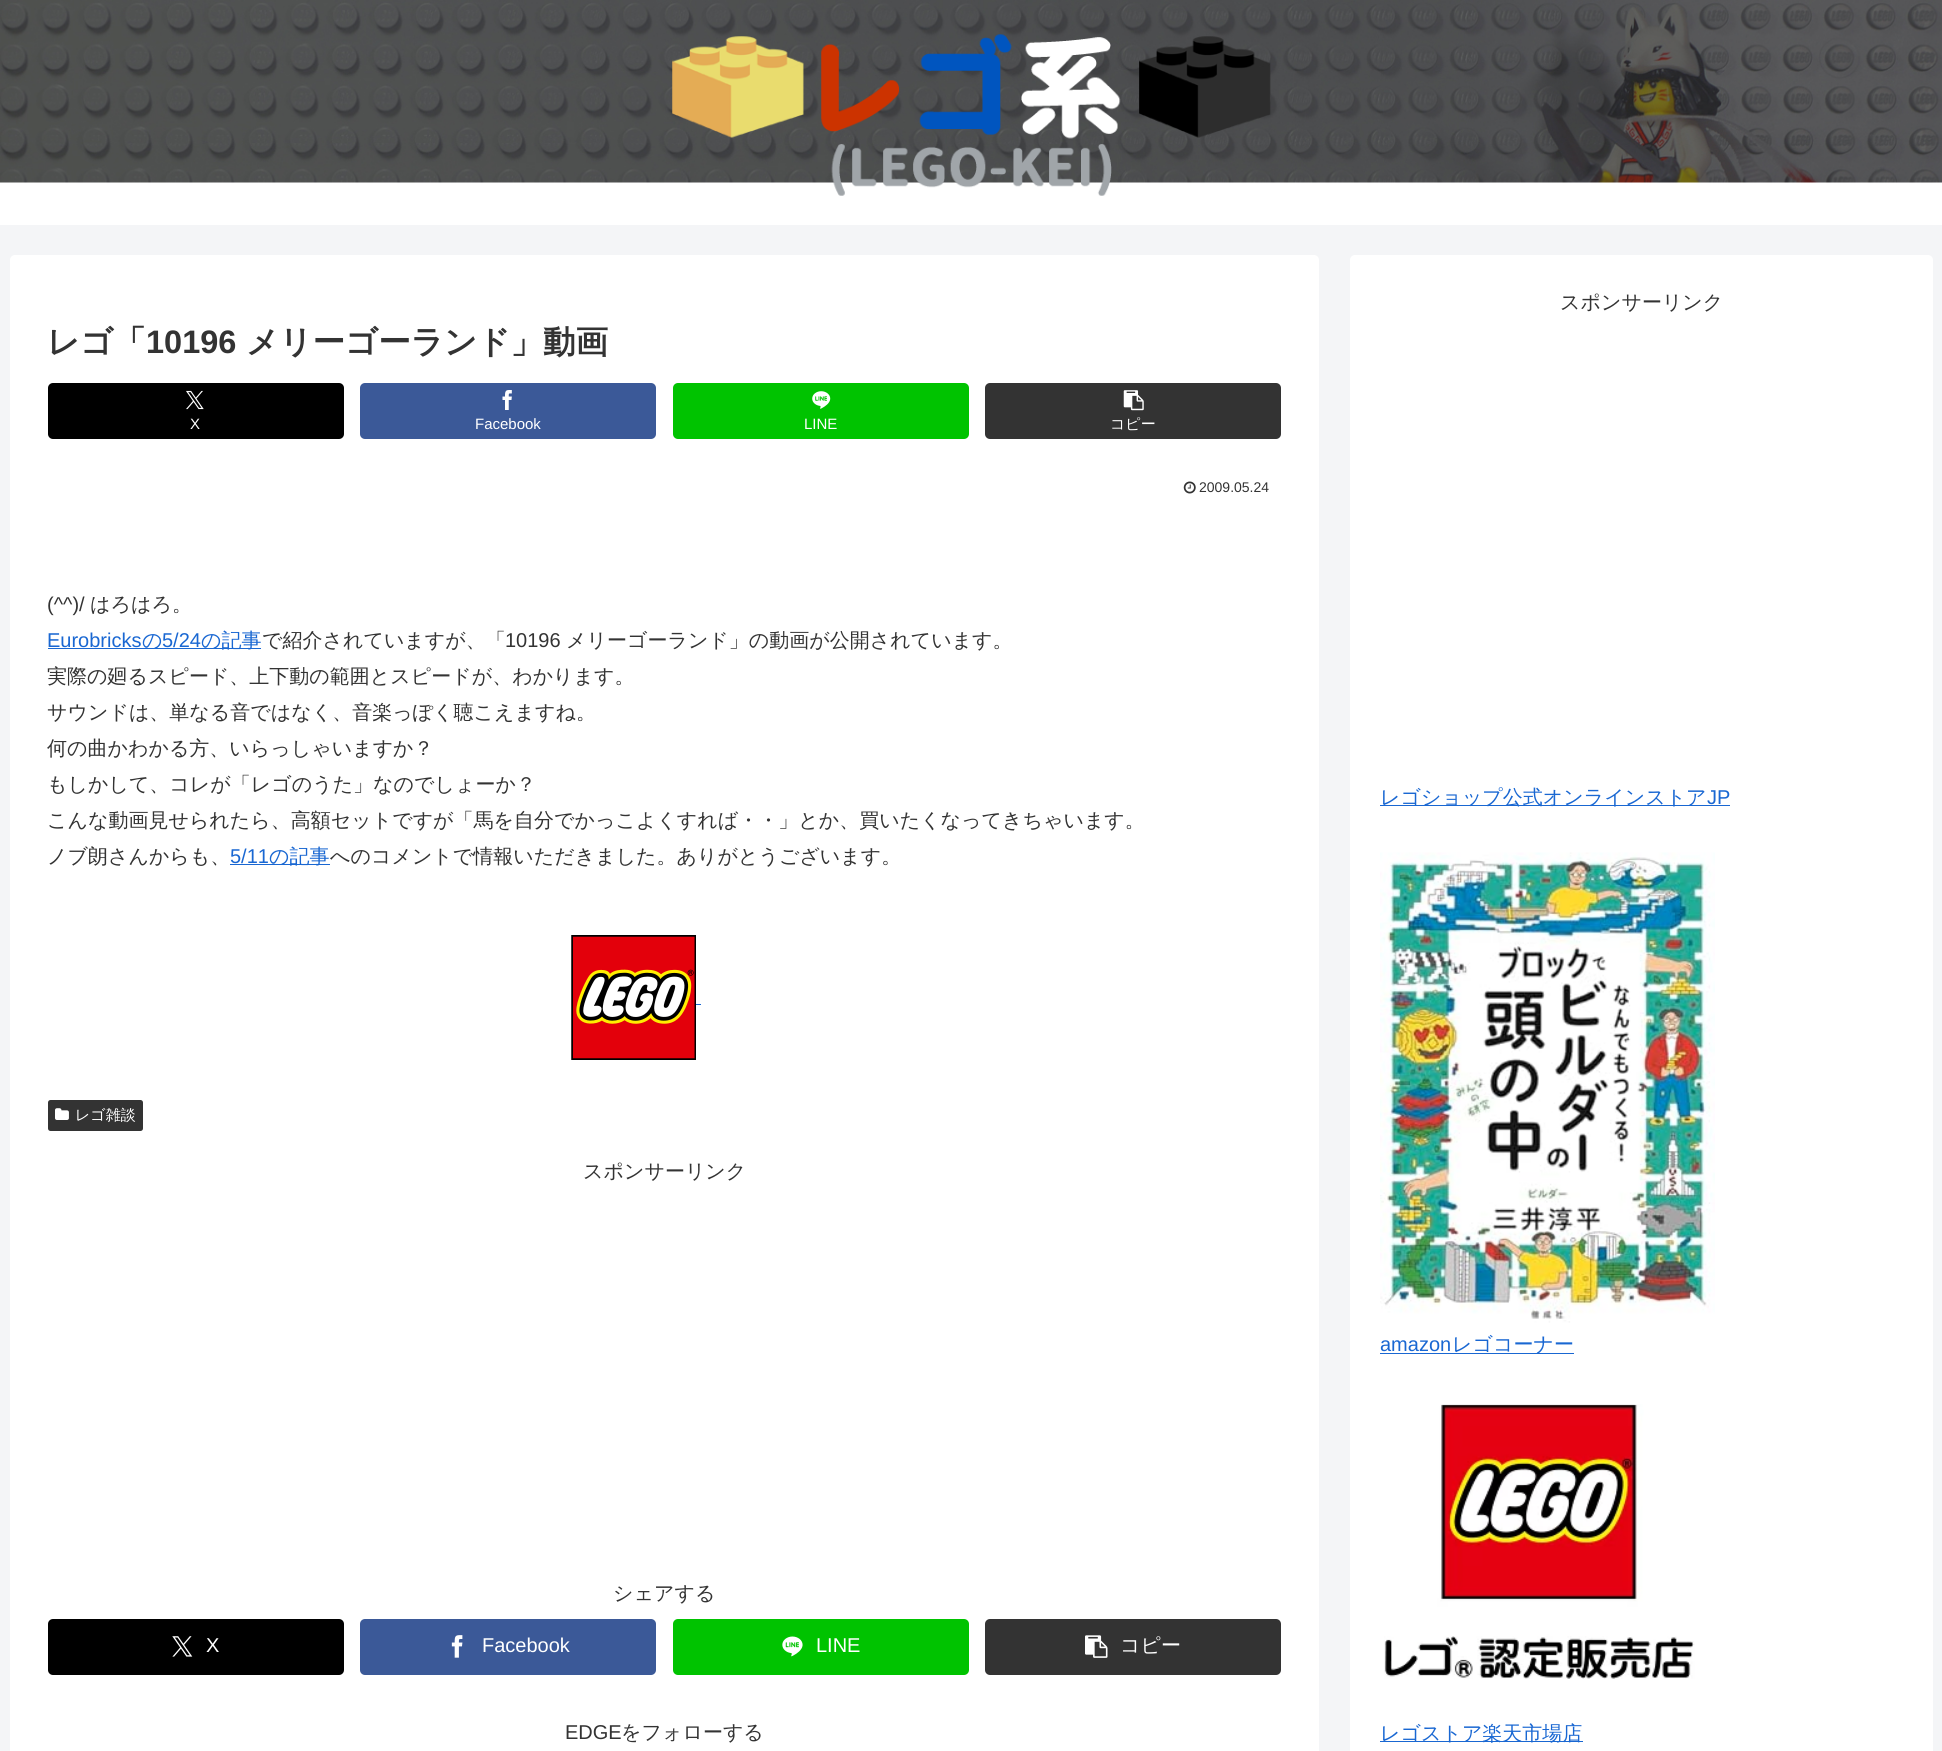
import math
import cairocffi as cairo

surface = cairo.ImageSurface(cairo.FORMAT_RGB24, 1942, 1751)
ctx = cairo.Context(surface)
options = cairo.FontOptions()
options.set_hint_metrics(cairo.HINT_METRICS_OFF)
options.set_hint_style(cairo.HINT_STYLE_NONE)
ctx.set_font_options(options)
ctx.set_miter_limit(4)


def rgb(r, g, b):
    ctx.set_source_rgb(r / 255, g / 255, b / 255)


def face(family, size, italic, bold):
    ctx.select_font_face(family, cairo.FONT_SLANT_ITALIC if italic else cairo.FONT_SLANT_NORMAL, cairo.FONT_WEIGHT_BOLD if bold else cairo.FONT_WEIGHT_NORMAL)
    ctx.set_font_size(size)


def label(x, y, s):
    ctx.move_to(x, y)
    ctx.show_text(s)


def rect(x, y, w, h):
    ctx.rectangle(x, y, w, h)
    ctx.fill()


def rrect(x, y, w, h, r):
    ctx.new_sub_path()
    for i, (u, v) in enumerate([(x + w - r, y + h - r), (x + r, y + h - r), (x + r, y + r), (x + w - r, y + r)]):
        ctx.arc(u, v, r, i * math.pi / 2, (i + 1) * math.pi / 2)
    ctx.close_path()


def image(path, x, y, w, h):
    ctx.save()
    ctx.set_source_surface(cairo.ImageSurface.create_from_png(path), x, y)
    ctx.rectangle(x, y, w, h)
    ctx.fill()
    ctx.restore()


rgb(244, 245, 247)
ctx.paint()
rgb(255, 255, 255)
rect(0, 182, 1942, 43)
image('image0.png', 0, 0, 1942, 183)
image('image1.png', 672, 34, 599, 162)
rrect(10, 255, 1309, 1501, 5)
ctx.fill()
face('WenQuanYi Zen Hei', 32.5, 0, 1)
rgb(51, 51, 51)
label(47, 353, 'レゴ「')
face('Liberation Sans', 32.5, 0, 1)
label(146, 353, '10196')
face('WenQuanYi Zen Hei', 32.5, 0, 1)
label(246, 353, 'メリーゴーランド」動画')
rgb(0, 0, 0)
rrect(48, 383, 296, 56, 5)
ctx.fill()
image('image2.png', 186, 390, 18, 20)
face('Liberation Sans', 15, 0, 0)
rgb(255, 255, 255)
label(190, 429, 'X')
rgb(59, 89, 152)
rrect(360, 383, 296, 56, 5)
ctx.fill()
image('image3.png', 502, 390, 10, 20)
rgb(255, 255, 255)
label(475, 429, 'Facebook')
rgb(0, 195, 0)
rrect(673, 383, 296, 56, 5)
ctx.fill()
image('image4.png', 812, 391, 19, 18)
rgb(255, 255, 255)
label(804, 429, 'LINE')
rgb(51, 51, 51)
rrect(985, 383, 296, 56, 5)
ctx.fill()
image('image5.png', 1123, 390, 21, 21)
face('WenQuanYi Zen Hei Medium', 15, 0, 0)
rgb(255, 255, 255)
label(1110, 429, 'コピー')
image('image6.png', 1183, 481, 13, 13)
face('Liberation Sans', 14, 0, 0)
rgb(51, 51, 51)
label(1199, 492, '2009.05.24')
face('Liberation Sans', 20, 0, 0)
label(47, 611, '(^^)/')
face('WenQuanYi Zen Hei Medium', 20, 0, 0)
label(90, 611, 'はろはろ。')
face('Liberation Sans', 20, 0, 0)
rgb(25, 103, 210)
label(47, 647, 'Eurobricks')
rect(48, 648, 213, 1)
face('WenQuanYi Zen Hei Medium', 20, 0, 0)
label(142, 647, 'の')
face('Liberation Sans', 20, 0, 0)
label(162, 647, '5/24')
face('WenQuanYi Zen Hei Medium', 20, 0, 0)
label(201, 647, 'の記事')
rgb(51, 51, 51)
label(262, 647, 'で紹介されていますが、「')
face('Liberation Sans', 20, 0, 0)
label(505, 647, '10196')
face('WenQuanYi Zen Hei Medium', 20, 0, 0)
label(566, 647, 'メリーゴーランド」の動画が公開されています。')
label(47, 683, '実際の廻るスピード、上下動の範囲とスピードが、わかります。')
label(47, 719, 'サウンドは、単なる音ではなく、音楽っぽく聴こえますね。')
label(47, 755, '何の曲かわかる方、いらっしゃいますか？')
label(47, 791, 'もしかして、コレが「レゴのうた」なのでしょーか？')
label(47, 827, 'こんな動画見せられたら、高額セットですが「馬を自分でかっこよくすれば・・」とか、買いたくなってきちゃいます。')
label(47, 863, 'ノブ朗さんからも、')
face('Liberation Sans', 20, 0, 0)
rgb(25, 103, 210)
label(230, 863, '5/11')
rect(230, 864, 100, 1)
face('WenQuanYi Zen Hei Medium', 20, 0, 0)
label(269, 863, 'の記事')
rgb(51, 51, 51)
label(330, 863, 'へのコメントで情報いただきました。ありがとうございます。')
image('image7.png', 571, 935, 125, 125)
rgb(25, 103, 210)
rect(696, 1004, 5, 1)
rgb(51, 51, 51)
rrect(48, 1100, 95, 31, 2.5)
ctx.fill()
image('image8.png', 55, 1108, 14, 12)
face('WenQuanYi Zen Hei Medium', 15, 0, 0)
rgb(255, 255, 255)
label(75, 1120, 'レゴ雑談')
face('WenQuanYi Zen Hei Medium', 20, 0, 0)
rgb(51, 51, 51)
label(583, 1178, 'スポンサーリンク')
label(613, 1600, 'シェアする')
rgb(0, 0, 0)
rrect(48, 1619, 296, 56, 5)
ctx.fill()
image('image9.png', 172, 1636, 21, 21)
face('Liberation Sans', 20, 0, 0)
rgb(255, 255, 255)
label(206, 1652, 'X')
rgb(59, 89, 152)
rrect(360, 1619, 296, 56, 5)
ctx.fill()
image('image10.png', 451, 1635, 12, 23)
rgb(255, 255, 255)
label(482, 1652, 'Facebook')
rgb(0, 195, 0)
rrect(673, 1619, 296, 56, 5)
ctx.fill()
image('image11.png', 782, 1636, 21, 21)
rgb(255, 255, 255)
label(816, 1652, 'LINE')
rgb(51, 51, 51)
rrect(985, 1619, 296, 56, 5)
ctx.fill()
image('image12.png', 1085, 1635, 23, 23)
face('WenQuanYi Zen Hei Medium', 20, 0, 0)
rgb(255, 255, 255)
label(1120, 1652, 'コピー')
face('Liberation Sans', 20, 0, 0)
rgb(51, 51, 51)
label(565, 1739, 'EDGE')
face('WenQuanYi Zen Hei Medium', 20, 0, 0)
label(621, 1739, 'をフォローする')
rgb(255, 255, 255)
rrect(1350, 255, 583, 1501, 5)
ctx.fill()
rgb(51, 51, 51)
label(1560, 309, 'スポンサーリンク')
rgb(25, 103, 210)
rect(1380, 805, 350, 1)
label(1380, 804, 'レゴショップ公式オンラインストア')
face('Liberation Sans', 20, 0, 0)
label(1707, 804, 'JP')
image('image13.png', 1380, 852, 335, 471)
label(1380, 1351, 'amazon')
rect(1380, 1353, 194, 1)
face('WenQuanYi Zen Hei Medium', 20, 0, 0)
label(1452, 1351, 'レゴコーナー')
image('image14.png', 1384, 1404, 311, 275)
rect(1380, 1741, 203, 1)
label(1380, 1740, 'レゴストア楽天市場店')
surface.write_to_png('render.png')
